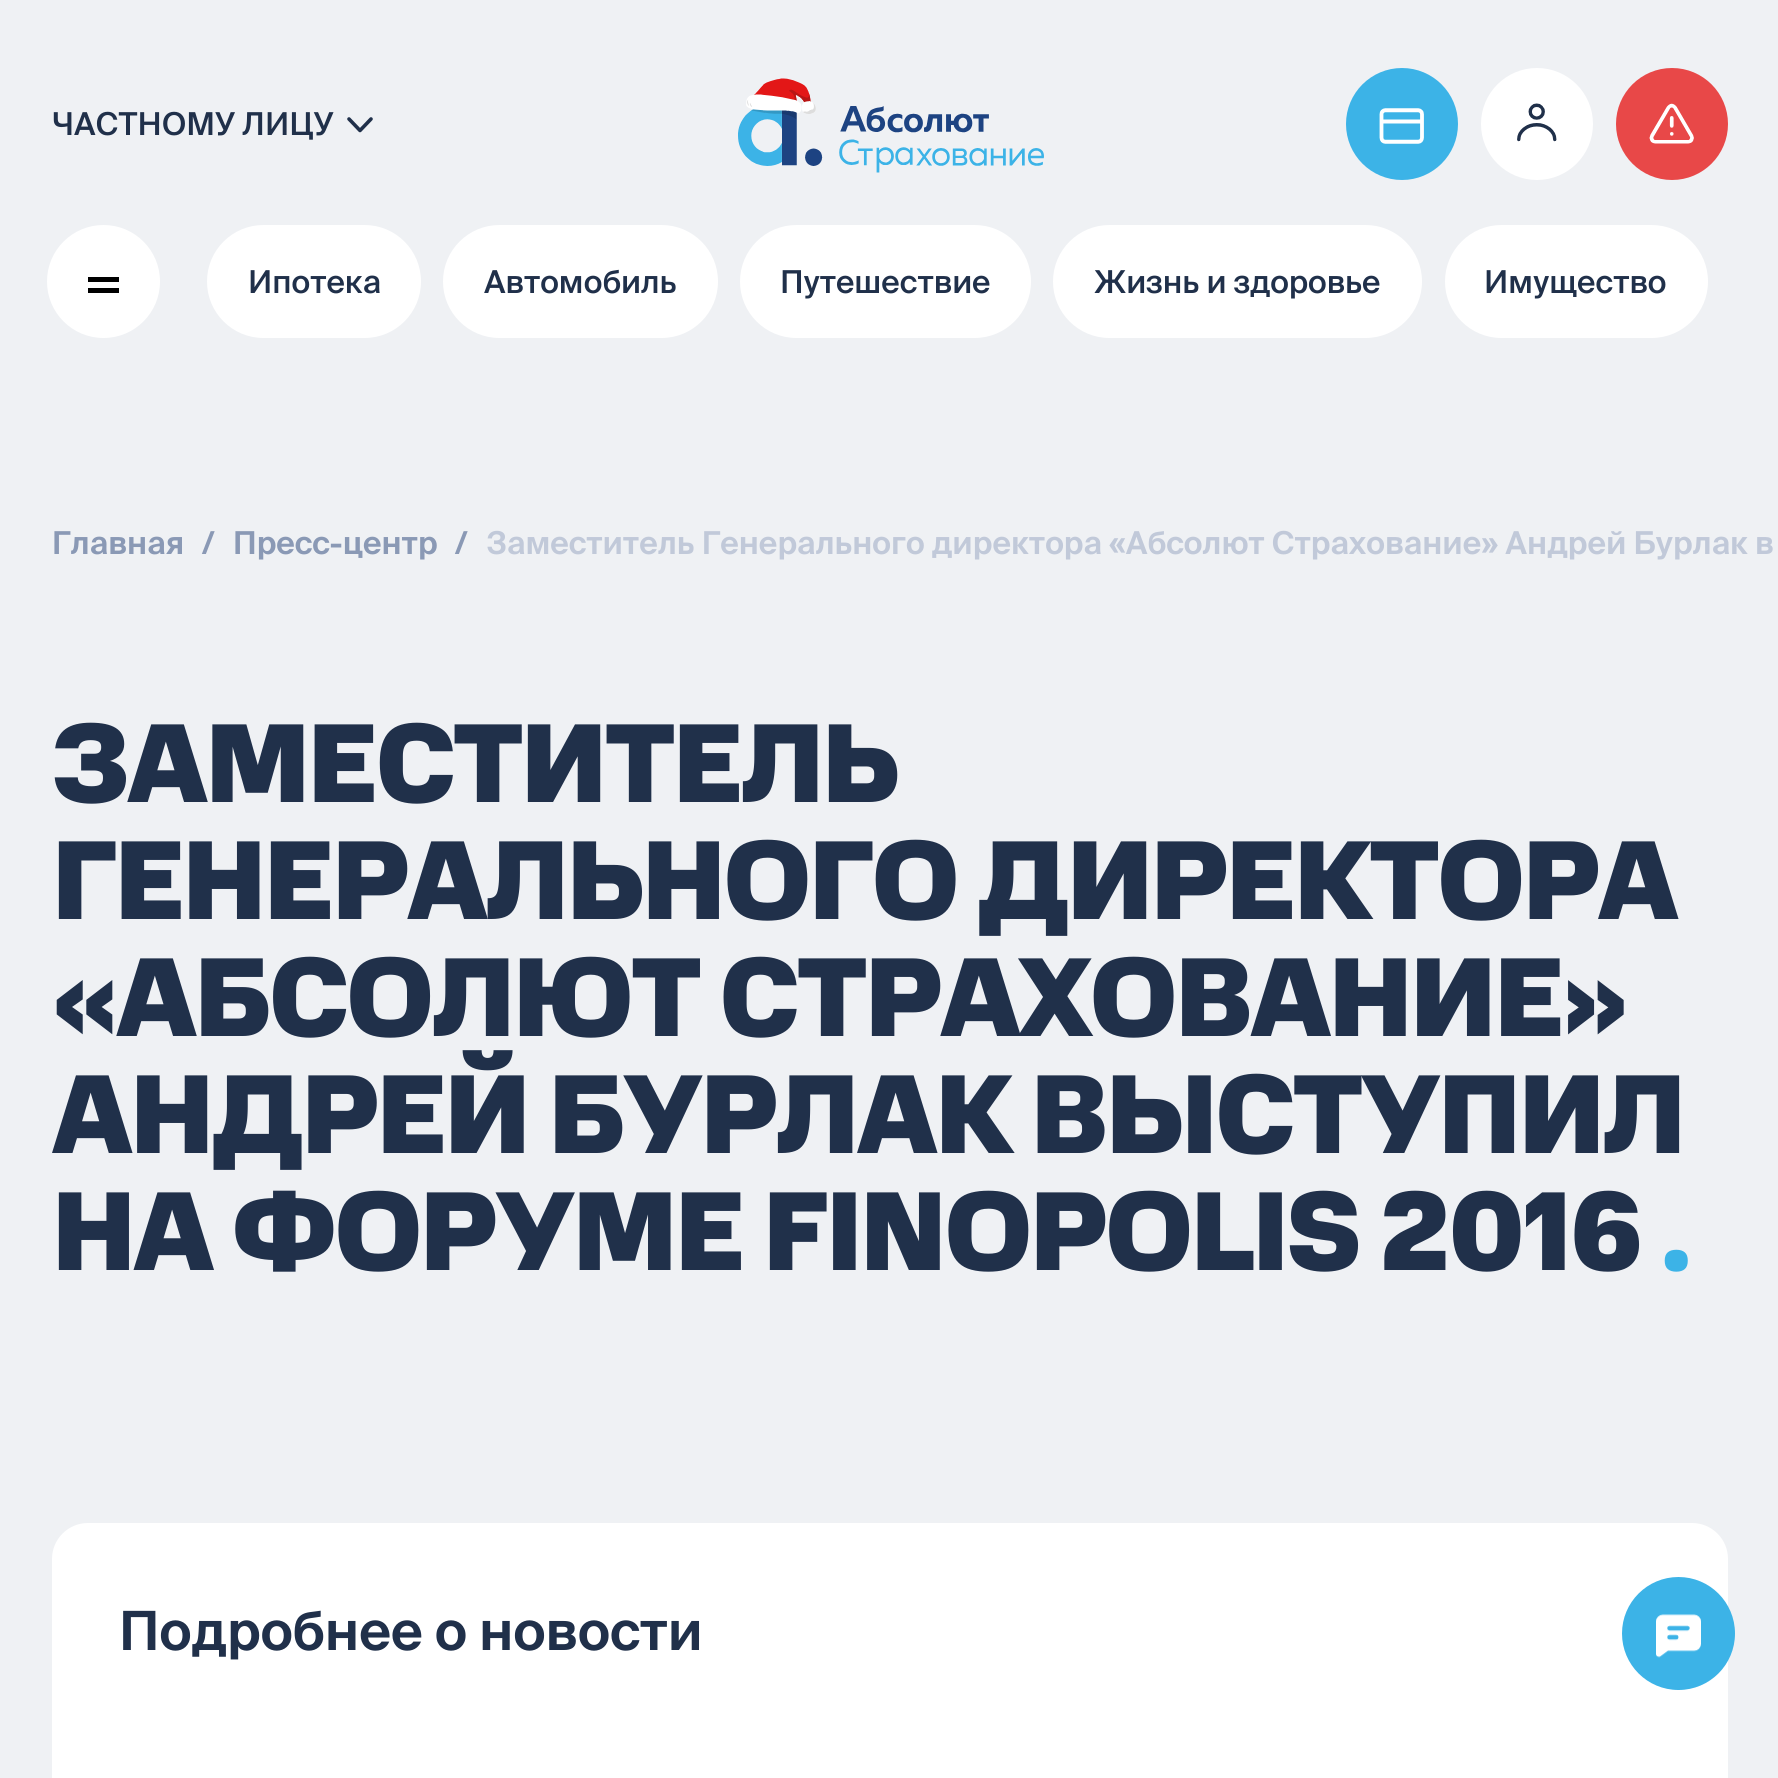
import math
import cairocffi as cairo

surface = cairo.ImageSurface(cairo.FORMAT_RGB24, 1778, 1778)
ctx = cairo.Context(surface)
options = cairo.FontOptions()
options.set_hint_metrics(cairo.HINT_METRICS_OFF)
options.set_hint_style(cairo.HINT_STYLE_NONE)
ctx.set_font_options(options)
ctx.set_miter_limit(4)


def rgb(r, g, b):
    ctx.set_source_rgb(r / 255, g / 255, b / 255)


def face(family, size, italic, bold):
    ctx.select_font_face(family, cairo.FONT_SLANT_ITALIC if italic else cairo.FONT_SLANT_NORMAL, cairo.FONT_WEIGHT_BOLD if bold else cairo.FONT_WEIGHT_NORMAL)
    ctx.set_font_size(size)


def label(x, y, s):
    ctx.move_to(x, y)
    ctx.show_text(s)


def tracked(x, y, s, letter, word):
    ctx.move_to(x, y)
    for ch in s:
        ctx.show_text(ch)
        ctx.rel_move_to(letter + word * (ch == ' '), 0)


def rect(x, y, w, h):
    ctx.rectangle(x, y, w, h)
    ctx.fill()


def rrect(x, y, w, h, r):
    ctx.new_sub_path()
    for i, (u, v) in enumerate([(x + w - r, y + h - r), (x + r, y + h - r), (x + r, y + r), (x + w - r, y + r)]):
        ctx.arc(u, v, r, i * math.pi / 2, (i + 1) * math.pi / 2)
    ctx.close_path()


def image(path, x, y, w, h):
    ctx.save()
    ctx.set_source_surface(cairo.ImageSurface.create_from_png(path), x, y)
    ctx.rectangle(x, y, w, h)
    ctx.fill()
    ctx.restore()


rgb(239, 241, 244)
ctx.paint()
face('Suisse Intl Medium', 31.5, 0, 0)
rgb(32, 48, 74)
label(52, 135, 'ЧАСТНОМУ ЛИЦУ')
ctx.new_path()
ctx.move_to(349, 119)
ctx.line_to(360, 130.5)
ctx.line_to(371, 119)
ctx.set_line_width(3.6)
ctx.set_line_cap(cairo.LINE_CAP_ROUND)
ctx.set_line_join(cairo.LINE_JOIN_ROUND)
ctx.stroke()
image('image0.png', 738, 78, 306, 95)
rgb(60, 179, 231)
ctx.arc(1402, 124, 56, 0, 2 * math.pi)
ctx.fill()
image('image1.png', 1379, 108, 45, 36)
rgb(255, 255, 255)
ctx.arc(1537, 124, 56, 0, 2 * math.pi)
ctx.fill()
image('image2.png', 1517, 103, 40, 39)
rgb(232, 72, 72)
ctx.arc(1672, 124, 56, 0, 2 * math.pi)
ctx.fill()
image('image3.png', 1649, 103, 45, 41)
rgb(255, 255, 255)
rrect(207, 225, 214, 113, 56.5)
ctx.fill()
rgb(32, 48, 74)
label(248, 293, 'Ипотека')
rgb(255, 255, 255)
rrect(443, 225, 275, 113, 56.5)
ctx.fill()
rgb(32, 48, 74)
label(484, 293, 'Автомобиль')
rgb(255, 255, 255)
rrect(740, 225, 291, 113, 56.5)
ctx.fill()
rgb(32, 48, 74)
label(780, 293, 'Путешествие')
rgb(255, 255, 255)
rrect(1053, 225, 369, 113, 56.5)
ctx.fill()
rgb(32, 48, 74)
label(1094, 293, 'Жизнь и здоровье')
rgb(255, 255, 255)
rrect(1445, 225, 263, 113, 56.5)
ctx.fill()
rgb(32, 48, 74)
label(1484, 293, 'Имущество')
rgb(255, 255, 255)
ctx.new_path()
ctx.arc(103.5, 281.5, 56.5, 0, 2 * math.pi)
ctx.fill()
rgb(0, 0, 0)
rect(88, 277, 31, 5)
rect(88, 288, 31, 5)
face('Suisse Intl SemiBold', 31.5, 0, 0)
rgb(138, 153, 181)
label(52, 554, 'Главная')
label(202, 554, '/')
label(233, 554, 'Пресс-центр')
label(455, 554, '/')
rgb(193, 201, 217)
label(486, 554, 'Заместитель Генерального директора «Абсолют Страхование» Андрей Бурлак в')
face('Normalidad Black', 112.5, 0, 0)
rgb(32, 48, 74)
tracked(52, 802, 'ЗАМЕСТИТЕЛЬ', -2.25, 0)
tracked(52, 919, 'ГЕНЕРАЛЬНОГО ДИРЕКТОРА', -2.25, 0)
tracked(52, 1036, '«АБСОЛЮТ СТРАХОВАНИЕ»', -2.25, 0)
tracked(52, 1153, 'АНДРЕЙ БУРЛАК ВЫСТУПИЛ', -2.25, 0)
tracked(52, 1270, 'НА ФОРУМЕ FINOPOLIS 2016', -2.25, 0)
rgb(60, 179, 231)
tracked(1661, 1270, '.', -2.25, 0)
rgb(255, 255, 255)
rrect(52, 1523, 1676, 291, 36)
ctx.fill()
face('Suisse Intl SemiBold', 54, 0, 0)
rgb(32, 48, 74)
label(119, 1650, 'Подробнее о новости')
rgb(60, 179, 231)
ctx.new_path()
ctx.arc(1678.5, 1633.5, 56.5, 0, 2 * math.pi)
ctx.fill()
image('image4.png', 1656, 1614, 45, 44)
surface.write_to_png('render.png')
